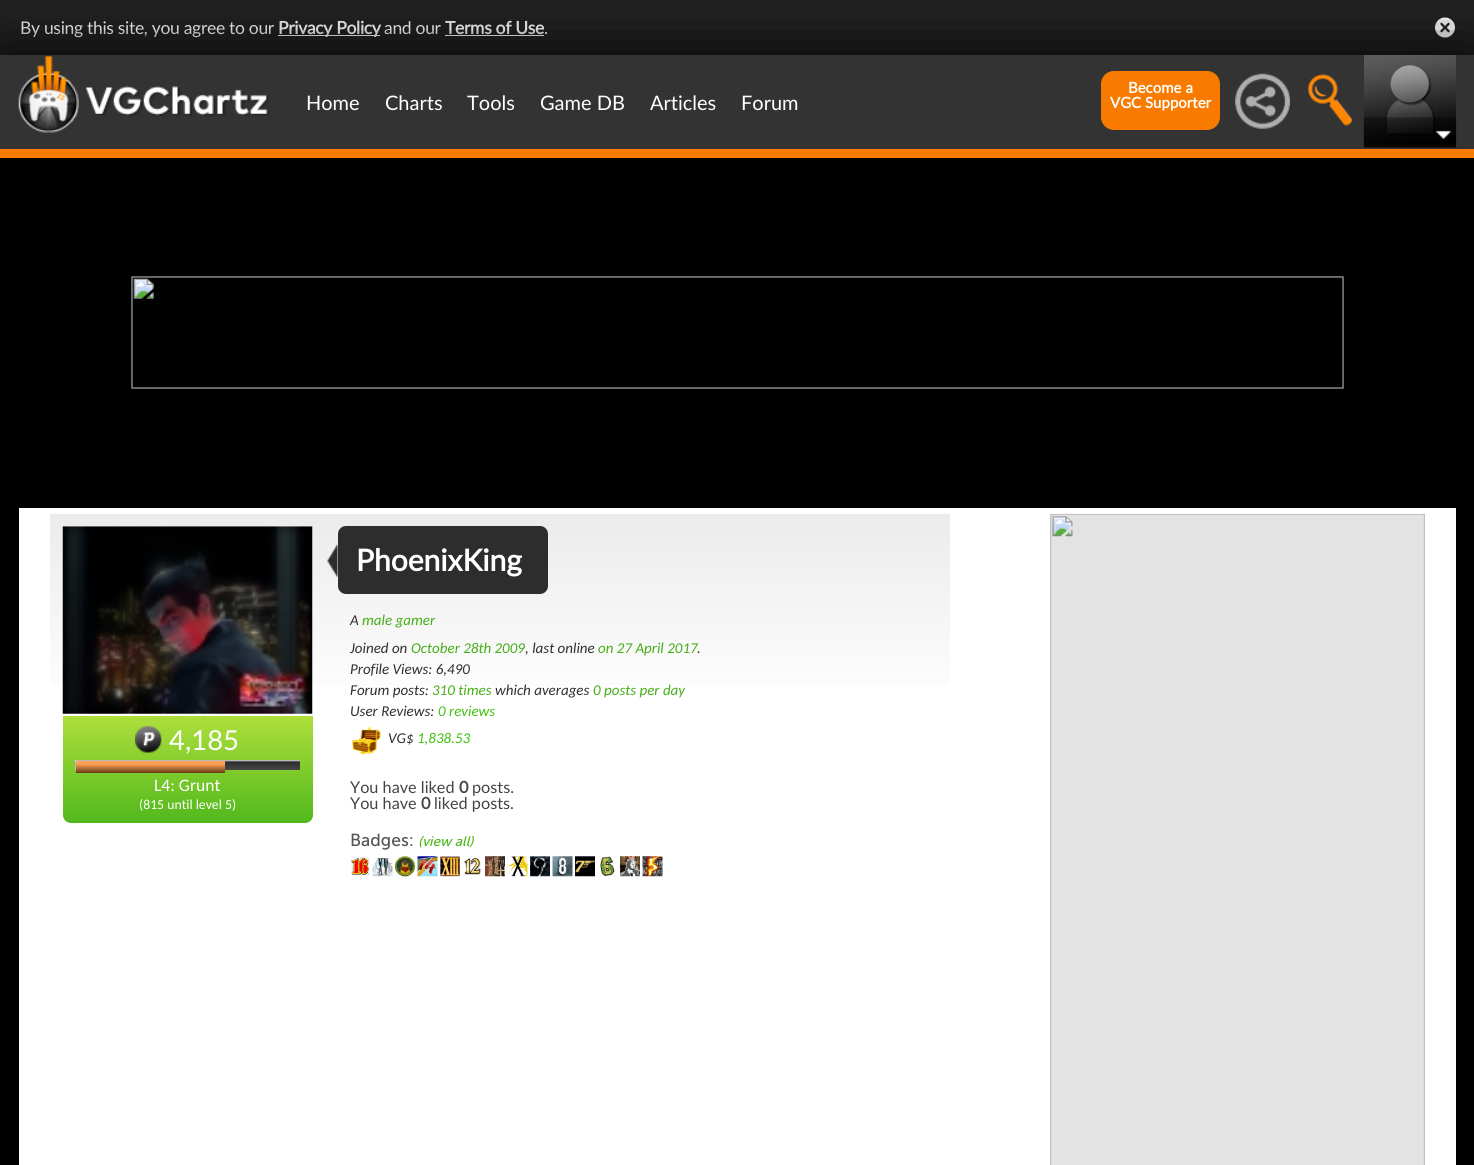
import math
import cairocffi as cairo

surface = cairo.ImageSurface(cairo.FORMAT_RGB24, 1474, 1165)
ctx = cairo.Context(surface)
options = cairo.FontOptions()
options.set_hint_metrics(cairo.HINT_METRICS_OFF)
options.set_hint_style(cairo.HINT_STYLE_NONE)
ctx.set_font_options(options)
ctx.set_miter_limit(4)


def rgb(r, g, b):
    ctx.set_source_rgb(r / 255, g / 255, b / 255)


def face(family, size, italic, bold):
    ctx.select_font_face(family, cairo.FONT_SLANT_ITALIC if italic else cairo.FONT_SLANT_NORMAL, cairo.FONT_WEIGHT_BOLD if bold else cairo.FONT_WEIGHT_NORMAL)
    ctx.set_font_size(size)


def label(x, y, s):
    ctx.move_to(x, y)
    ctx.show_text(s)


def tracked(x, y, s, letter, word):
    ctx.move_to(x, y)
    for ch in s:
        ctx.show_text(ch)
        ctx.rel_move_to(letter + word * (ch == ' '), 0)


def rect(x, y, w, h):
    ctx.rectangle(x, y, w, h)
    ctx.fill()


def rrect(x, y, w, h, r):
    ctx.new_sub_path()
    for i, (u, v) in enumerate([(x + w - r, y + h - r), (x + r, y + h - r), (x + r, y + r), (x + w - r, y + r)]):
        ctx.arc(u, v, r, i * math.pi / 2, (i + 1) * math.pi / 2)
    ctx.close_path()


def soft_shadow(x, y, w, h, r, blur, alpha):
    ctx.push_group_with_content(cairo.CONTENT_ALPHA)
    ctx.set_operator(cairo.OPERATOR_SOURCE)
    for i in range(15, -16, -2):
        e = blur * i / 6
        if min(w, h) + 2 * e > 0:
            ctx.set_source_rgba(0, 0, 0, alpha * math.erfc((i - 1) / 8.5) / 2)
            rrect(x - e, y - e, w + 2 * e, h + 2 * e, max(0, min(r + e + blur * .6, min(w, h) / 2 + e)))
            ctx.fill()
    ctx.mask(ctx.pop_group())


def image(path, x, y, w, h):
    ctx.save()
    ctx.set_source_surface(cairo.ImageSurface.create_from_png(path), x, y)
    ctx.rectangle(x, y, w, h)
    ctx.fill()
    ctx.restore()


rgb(0, 0, 0)
ctx.paint()
rgb(34, 34, 34)
rect(0, 0, 1474, 55)
face('Lato', 17.5, 0, 0)
rgb(255, 255, 255)
tracked(20, 34, 'By using this site, you agree to our', -0.3, 0)
rect(278, 35, 102, 1)
face('Lato', 17.5, 0, 1)
tracked(278, 34, 'Privacy Policy', -0.3, 0)
face('Lato', 17.5, 0, 0)
tracked(384, 34, 'and our', -0.3, 0)
face('Lato', 17.5, 0, 1)
tracked(445, 34, 'Terms of Use', -0.3, 0)
face('Lato', 17.5, 0, 0)
tracked(544, 34, '.', -0.3, 0)
rect(445, 35, 99, 1)
image('image0.png', 1435, 17, 20, 21)
rgb(0, 0, 0)
soft_shadow(0, 56, 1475, 103, 0, 31, 1)
rgb(51, 51, 51)
rect(0, 55, 1474, 94)
image('image1.png', 18, 56, 252, 77)
face('Lato', 20, 0, 0)
rgb(255, 255, 255)
label(306, 110, 'Home')
label(385, 110, 'Charts')
label(467, 110, 'Tools')
label(540, 110, 'Game DB')
label(650, 110, 'Articles')
label(741, 110, 'Forum')
rgb(248, 123, 0)
rrect(1101.5, 71.5, 118, 58, 12.5)
ctx.fill_preserve()
ctx.set_line_width(1)
ctx.stroke()
face('Lato', 15, 0, 1)
rgb(255, 255, 255)
label(1128, 93, 'Become a')
label(1110, 108, 'VGC Supporter')
image('image2.png', 1235, 73, 55, 56)
image('image3.png', 1308, 74, 47, 60)
image('image4.png', 1364, 55, 92, 93)
image('image5.png', 1363, 117, 94, 31)
rgb(249, 123, 0)
rect(0, 149, 1474, 9)
image('image6.png', 131, 276, 1213, 113)
rgb(255, 255, 255)
rect(19, 508, 1437, 657)
gradient = cairo.LinearGradient(50, 514, 50, 908)
gradient.add_color_stop_rgba(0, 0.922, 0.922, 0.922, 1)
gradient.add_color_stop_rgba(0.5, 1, 1, 1, 1)
gradient.add_color_stop_rgba(1, 1, 1, 1, 1)
ctx.set_source(gradient)
rect(50, 514, 900, 172)
image('image7.png', 62, 526, 251, 188)
gradient = cairo.LinearGradient(63, 716, 63, 823)
gradient.add_color_stop_rgba(0, 0.682, 0.875, 0.235, 1)
gradient.add_color_stop_rgba(1, 0.318, 0.722, 0.11, 1)
ctx.set_source(gradient)
ctx.new_path()
ctx.move_to(63, 716)
ctx.line_to(313, 716)
ctx.line_to(313, 815)
ctx.curve_to(313, 819.5, 309.5, 823, 305, 823)
ctx.line_to(71, 823)
ctx.curve_to(66.5, 823, 63, 819.5, 63, 815)
ctx.close_path()
ctx.fill()
image('image8.png', 135, 726, 27, 27)
face('Lato', 27.5, 0, 0)
rgb(255, 255, 255)
label(169, 750, '4,185')
image('image9.png', 75, 760, 225, 10)
gradient = cairo.LinearGradient(76, 761, 76, 773)
gradient.add_color_stop_rgba(0, 1, 0.635, 0.341, 1)
gradient.add_color_stop_rgba(0.25, 1, 0.635, 0.341, 1)
gradient.add_color_stop_rgba(1, 0.384, 0.216, 0.078, 1)
ctx.set_source(gradient)
rect(76, 761, 149, 12)
face('Carlito', 17.5, 0, 0)
rgb(255, 255, 255)
label(154, 791, 'L4: Grunt')
face('Carlito', 13.75, 0, 0)
label(139, 809, '(815 until level 5)')
rgb(45, 45, 45)
rrect(338, 526, 210, 68, 8)
ctx.fill()
image('image10.png', 327, 544, 11, 34)
face('Lato', 30, 0, 1)
rgb(255, 255, 255)
label(356, 571, 'PhoenixKing')
face('Carlito', 15, 1, 0)
rgb(47, 47, 47)
label(350, 625, 'A')
rgb(70, 174, 24)
label(362, 625, 'male gamer')
rgb(47, 47, 47)
label(350, 653, 'Joined on')
rgb(70, 174, 24)
label(411, 653, 'October 28th 2009')
rgb(47, 47, 47)
label(525, 653, ', last online')
rgb(70, 174, 24)
label(598, 653, 'on 27 April 2017')
rgb(47, 47, 47)
label(697, 653, '.')
label(350, 674, 'Profile Views: 6,490')
label(350, 695, 'Forum posts:')
rgb(70, 174, 24)
label(432, 695, '310 times')
rgb(47, 47, 47)
label(495, 695, 'which averages')
rgb(70, 174, 24)
label(593, 695, '0 posts per day')
rgb(47, 47, 47)
label(350, 716, 'User Reviews:')
rgb(66, 192, 17)
label(438, 716, '0 reviews')
image('image11.png', 351, 726, 31, 29)
rgb(47, 47, 47)
label(388, 743, 'VG$')
rgb(66, 192, 17)
label(417, 743, '1,838.53')
face('Lato', 16.25, 0, 0)
rgb(68, 68, 68)
label(350, 793, 'You have liked')
face('Lato', 16.25, 0, 1)
label(459, 793, '0')
face('Lato', 16.25, 0, 0)
label(472, 793, 'posts.')
label(350, 809, 'You have')
face('Lato', 16.25, 0, 1)
label(421, 809, '0')
face('Lato', 16.25, 0, 0)
label(434, 809, 'liked posts.')
face('Museo Sans', 17.5, 0, 0)
rgb(86, 86, 86)
label(350, 846, 'Badges:')
face('Museo Sans', 13.75, 1, 0)
rgb(77, 183, 26)
label(418, 846, '(view all)')
image('image12.png', 351, 857, 19, 19)
image('image13.png', 372, 858, 21, 19)
image('image14.png', 395, 856, 20, 21)
image('image15.png', 417, 856, 21, 21)
image('image16.png', 440, 856, 20, 21)
image('image17.png', 463, 858, 19, 17)
image('image18.png', 485, 856, 20, 21)
image('image19.png', 507, 856, 21, 21)
image('image20.png', 530, 856, 20, 21)
image('image21.png', 552, 856, 21, 21)
image('image22.png', 575, 856, 20, 21)
image('image23.png', 597, 856, 20, 21)
image('image24.png', 620, 856, 20, 21)
image('image25.png', 642, 856, 21, 21)
rgb(227, 227, 227)
rect(1051, 515, 373, 650)
image('image26.png', 1050, 513, 375, 652)
surface.write_to_png('render.png')
